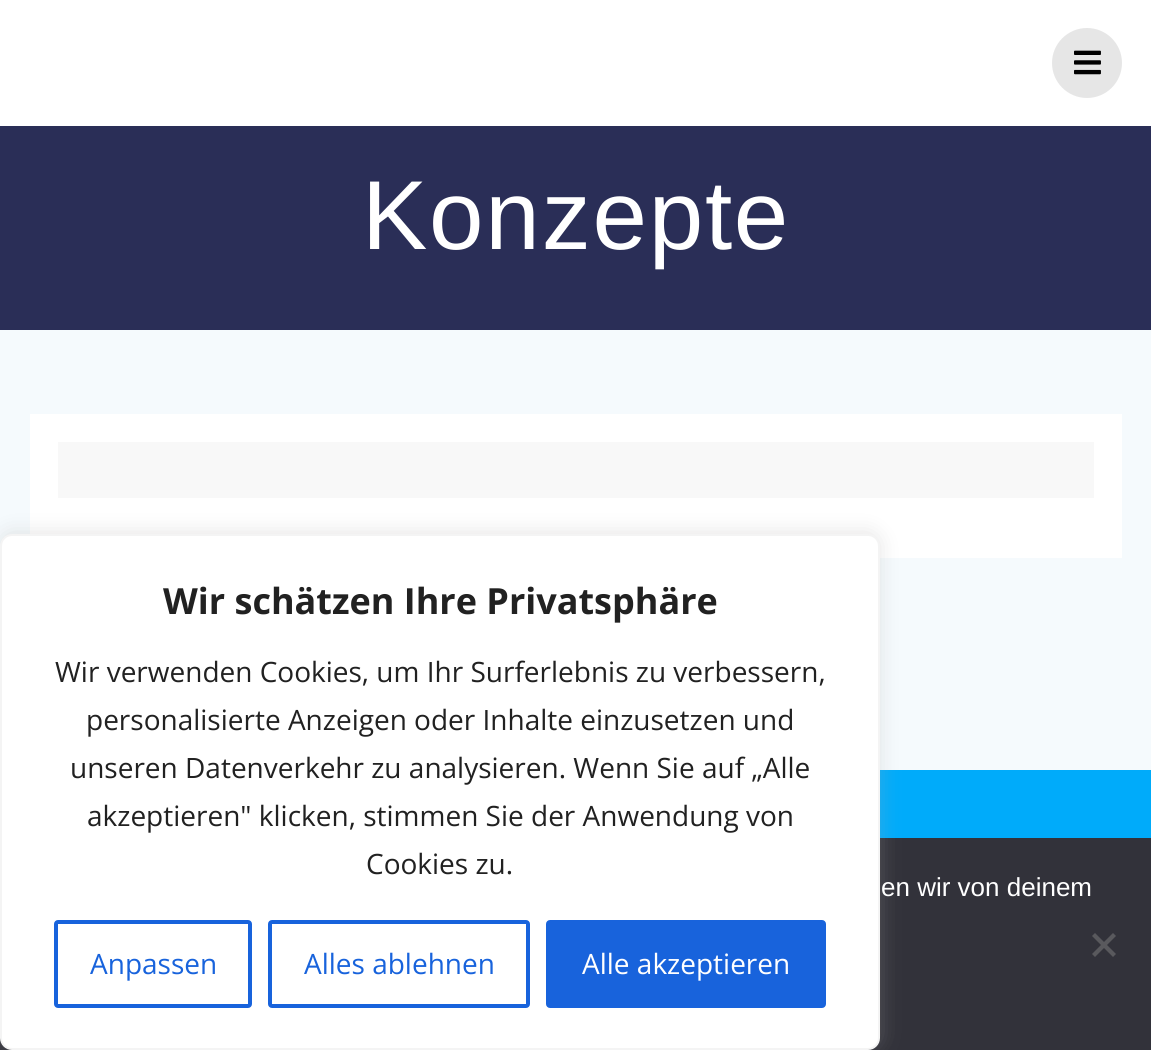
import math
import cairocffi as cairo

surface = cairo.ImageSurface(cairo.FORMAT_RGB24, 1151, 1050)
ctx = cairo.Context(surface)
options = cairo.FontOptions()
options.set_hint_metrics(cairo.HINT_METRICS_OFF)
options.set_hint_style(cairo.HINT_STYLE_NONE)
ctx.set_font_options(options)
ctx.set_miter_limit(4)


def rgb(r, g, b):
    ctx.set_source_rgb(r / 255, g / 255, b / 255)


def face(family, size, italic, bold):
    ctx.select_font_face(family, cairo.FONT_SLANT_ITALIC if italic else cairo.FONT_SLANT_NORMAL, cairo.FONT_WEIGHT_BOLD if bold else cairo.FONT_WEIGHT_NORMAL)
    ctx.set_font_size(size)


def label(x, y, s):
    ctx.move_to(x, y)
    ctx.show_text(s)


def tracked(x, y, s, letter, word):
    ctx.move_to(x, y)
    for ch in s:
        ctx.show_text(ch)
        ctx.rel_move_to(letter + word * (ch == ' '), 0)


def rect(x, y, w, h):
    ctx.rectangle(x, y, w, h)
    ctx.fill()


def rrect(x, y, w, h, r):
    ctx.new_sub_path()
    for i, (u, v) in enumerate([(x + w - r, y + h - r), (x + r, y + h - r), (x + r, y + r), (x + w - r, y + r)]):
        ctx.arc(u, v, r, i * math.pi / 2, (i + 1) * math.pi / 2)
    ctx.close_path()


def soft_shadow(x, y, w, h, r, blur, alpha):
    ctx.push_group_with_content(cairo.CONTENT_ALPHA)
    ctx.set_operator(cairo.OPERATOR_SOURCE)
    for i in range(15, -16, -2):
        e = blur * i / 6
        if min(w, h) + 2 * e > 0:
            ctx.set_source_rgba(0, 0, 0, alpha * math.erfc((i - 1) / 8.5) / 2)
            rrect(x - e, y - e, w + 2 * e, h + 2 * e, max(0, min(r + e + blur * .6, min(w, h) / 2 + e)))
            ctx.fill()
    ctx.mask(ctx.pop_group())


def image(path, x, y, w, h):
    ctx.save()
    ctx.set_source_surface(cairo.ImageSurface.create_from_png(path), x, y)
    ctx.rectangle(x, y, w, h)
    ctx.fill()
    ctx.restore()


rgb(0, 171, 250)
ctx.paint()
rgb(255, 255, 255)
rect(0, 0, 1151, 126)
rgb(230, 230, 230)
ctx.arc(1087, 63, 35, 0, 2 * math.pi)
ctx.fill()
image('image0.png', 1074, 50, 27, 25)
rgb(42, 46, 87)
rect(0, 126, 1151, 204)
face('Liberation Sans', 98, 0, 0)
rgb(255, 255, 255)
tracked(362, 249, 'Konzepte', 1.75, 0)
rgb(245, 250, 253)
rect(0, 330, 1151, 440)
rgb(255, 255, 255)
rect(30, 414, 1092, 144)
rgb(248, 248, 248)
rect(58, 442, 1036, 56)
rgb(50, 50, 58)
rect(0, 838, 1151, 212)
rgb(172, 171, 171)
soft_shadow(0, 532, 880, 516, 12, 10, 0.3)
rgb(255, 255, 255)
rrect(1, 535, 878, 514, 11)
ctx.fill_preserve()
rgb(244, 244, 244)
ctx.stroke()
face('Open Sans', 36, 0, 1)
rgb(33, 33, 33)
label(163, 614, 'Wir schätzen Ihre Privatsphäre')
face('Open Sans', 28, 0, 0)
label(55, 682, 'Wir verwenden Cookies, um Ihr Surferlebnis zu verbessern,')
label(86, 730, 'personalisierte Anzeigen oder Inhalte einzusetzen und')
label(70, 778, 'unseren Datenverkehr zu analysieren. Wenn Sie auf „Alle')
label(87, 826, 'akzeptieren" klicken, stimmen Sie der Anwendung von')
label(366, 874, 'Cookies zu.')
rrect(56, 922, 194, 84, 2)
rgb(24, 99, 220)
ctx.set_line_width(4)
ctx.stroke()
label(90, 974, 'Anpassen')
rrect(270, 922, 258, 84, 2)
ctx.stroke()
label(304, 974, 'Alles ablehnen')
rrect(548, 922, 276, 84, 2)
ctx.fill_preserve()
ctx.stroke()
rgb(255, 255, 255)
label(582, 974, 'Alle akzeptieren')
face('Liberation Sans', 26, 0, 0)
label(881, 896, 'en wir von deinem')
rgb(89, 89, 93)
ctx.new_path()
ctx.move_to(1113, 933)
ctx.line_to(1116, 936)
ctx.line_to(1095, 957)
ctx.line_to(1092, 954)
ctx.close_path()
ctx.fill()
ctx.new_path()
ctx.move_to(1092, 936)
ctx.line_to(1095, 933)
ctx.line_to(1116, 954)
ctx.line_to(1113, 957)
ctx.close_path()
ctx.fill()
surface.write_to_png('render.png')
